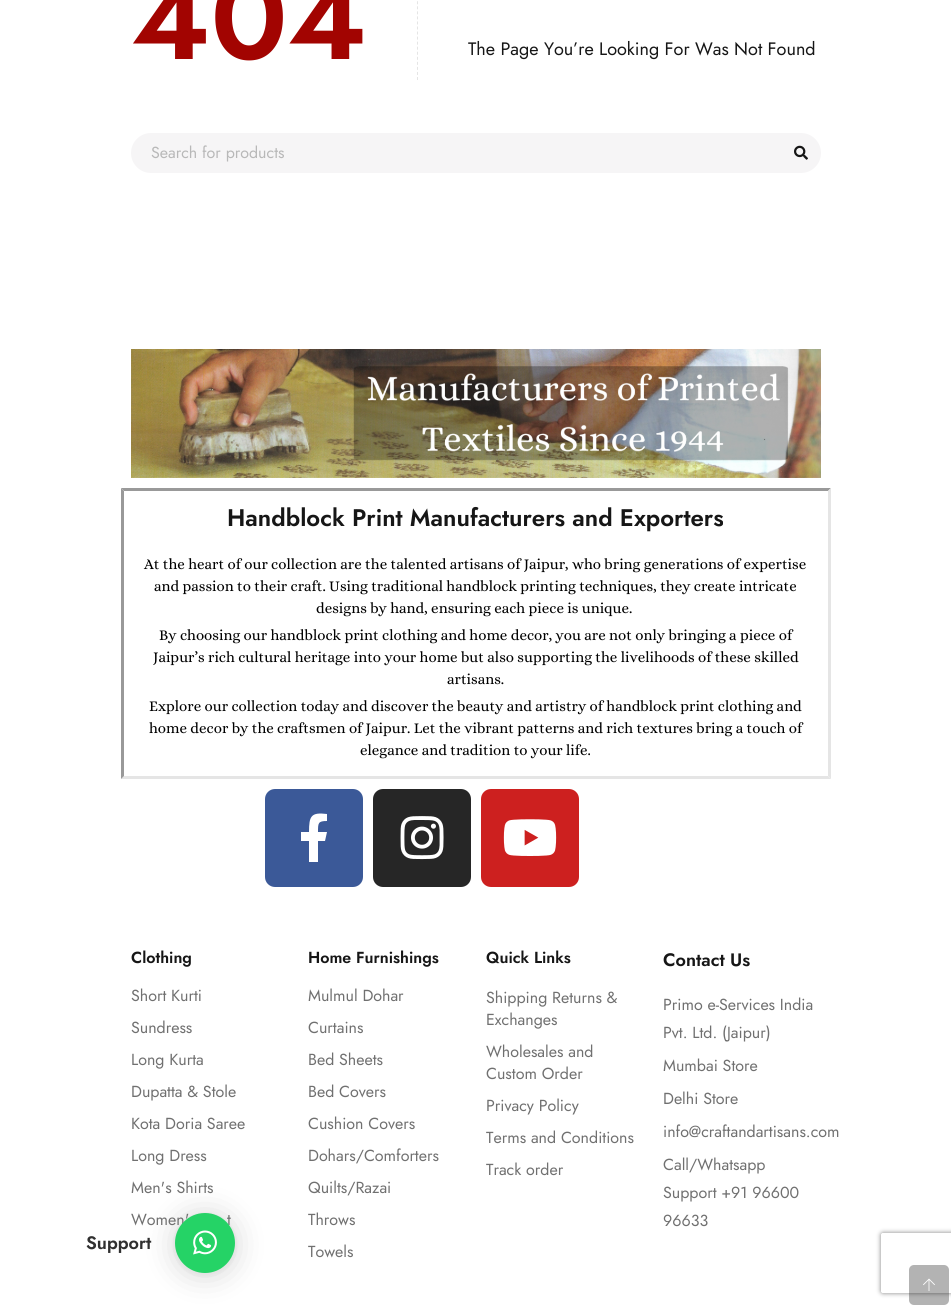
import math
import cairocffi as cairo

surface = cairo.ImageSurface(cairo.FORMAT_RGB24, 951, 1307)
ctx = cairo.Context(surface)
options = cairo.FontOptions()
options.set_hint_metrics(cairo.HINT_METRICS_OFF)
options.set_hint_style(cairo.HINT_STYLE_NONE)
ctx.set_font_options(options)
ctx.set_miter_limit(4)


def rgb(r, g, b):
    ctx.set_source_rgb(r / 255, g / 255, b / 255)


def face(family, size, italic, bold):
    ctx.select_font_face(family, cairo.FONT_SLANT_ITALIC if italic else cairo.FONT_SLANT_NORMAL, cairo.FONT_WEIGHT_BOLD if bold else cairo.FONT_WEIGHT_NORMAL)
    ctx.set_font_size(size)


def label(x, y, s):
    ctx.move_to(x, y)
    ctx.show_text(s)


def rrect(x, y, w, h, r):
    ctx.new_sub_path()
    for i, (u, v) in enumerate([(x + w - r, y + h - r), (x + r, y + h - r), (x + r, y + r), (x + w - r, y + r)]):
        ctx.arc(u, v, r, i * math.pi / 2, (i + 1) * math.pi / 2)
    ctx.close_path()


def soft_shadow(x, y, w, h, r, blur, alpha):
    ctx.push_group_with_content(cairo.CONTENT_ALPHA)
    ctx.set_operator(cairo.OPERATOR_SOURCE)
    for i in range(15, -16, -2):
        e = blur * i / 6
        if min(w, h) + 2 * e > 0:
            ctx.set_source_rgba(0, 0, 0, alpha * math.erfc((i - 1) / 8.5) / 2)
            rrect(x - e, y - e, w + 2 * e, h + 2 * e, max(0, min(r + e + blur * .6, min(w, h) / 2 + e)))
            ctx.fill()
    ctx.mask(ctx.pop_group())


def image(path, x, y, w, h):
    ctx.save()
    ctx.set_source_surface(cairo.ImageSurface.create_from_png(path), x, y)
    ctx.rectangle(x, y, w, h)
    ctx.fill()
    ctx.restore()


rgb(255, 255, 255)
ctx.paint()
rgb(0, 0, 0)
soft_shadow(175, 1215, 60, 60, 30, 16, 0.16)
soft_shadow(175, 1214, 60, 60, 30, 3, 0.06)
face('Jost', 16, 0, 0)
rgb(112, 112, 112)
label(131, 1225, 'Women\'')
label(227, 1225, 't')
rgb(37, 211, 102)
ctx.new_path()
ctx.arc(205, 1243, 30, 0, 2 * math.pi)
ctx.fill()
face('Jost SemiBold', 18, 0, 0)
rgb(48, 48, 48)
label(86, 1249, 'Support')
image('image0.png', 193, 1230, 24, 25)
face('Jost SemiBold', 120, 0, 0)
rgb(162, 4, 1)
label(131, 59, '404')
ctx.new_path()
ctx.move_to(417.5, -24)
ctx.line_to(417.5, 80)
rgb(229, 229, 229)
ctx.set_line_width(1)
ctx.set_dash([3, 2.05])
ctx.stroke()
face('Jost', 18, 0, 0)
rgb(22, 22, 22)
label(468, 55, 'The Page You’re Looking For Was Not Found')
rgb(246, 245, 246)
rrect(131, 133, 690, 40, 20)
ctx.fill()
face('Jost', 16, 0, 0)
rgb(184, 184, 184)
label(151, 158, 'Search for products')
image('image1.png', 794, 145, 14, 15)
image('image2.png', 131, 349, 690, 129)
rgb(153, 153, 153)
ctx.new_path()
ctx.move_to(121, 488)
ctx.line_to(831, 488)
ctx.line_to(828, 491)
ctx.line_to(124, 491)
ctx.close_path()
ctx.fill()
rgb(229, 229, 229)
ctx.new_path()
ctx.move_to(831, 488)
ctx.line_to(831, 779)
ctx.line_to(828, 776)
ctx.line_to(828, 491)
ctx.close_path()
ctx.fill()
ctx.new_path()
ctx.move_to(831, 779)
ctx.line_to(121, 779)
ctx.line_to(124, 776)
ctx.line_to(828, 776)
ctx.close_path()
ctx.fill()
rgb(153, 153, 153)
ctx.new_path()
ctx.move_to(121, 779)
ctx.line_to(121, 488)
ctx.line_to(124, 491)
ctx.line_to(124, 776)
ctx.close_path()
ctx.fill()
face('Jost SemiBold', 24, 0, 0)
rgb(22, 22, 22)
label(227, 526, 'Handblock Print Manufacturers and Exporters')
face('Alice', 15, 0, 0)
rgb(0, 0, 0)
label(144, 569, 'At the heart of our collection are the talented artisans of Jaipur, who bring generations of expertise')
label(154, 591, 'and passion to their craft. Using traditional handblock printing techniques, they create intricate')
label(316, 613, 'designs by hand, ensuring each piece is unique.')
label(159, 640, 'By choosing our handblock print clothing and home decor, you are not only bringing a piece of')
label(153, 662, 'Jaipur’s rich cultural heritage into your home but also supporting the livelihoods of these skilled')
label(447, 684, 'artisans.')
label(149, 711, 'Explore our collection today and discover the beauty and artistry of handblock print clothing and')
label(149, 733, 'home decor by the craftsmen of Jaipur. Let the vibrant patterns and rich textures bring a touch of')
label(360, 755, 'elegance and tradition to your life.')
rgb(59, 89, 152)
rrect(265, 789, 98, 98, 10)
ctx.fill()
rgb(255, 255, 255)
ctx.new_path()
ctx.move_to(325, 841)
ctx.line_to(318, 841)
ctx.line_to(318, 862)
ctx.line_to(309, 862)
ctx.line_to(309, 841)
ctx.line_to(301, 841)
ctx.line_to(301, 832)
ctx.line_to(309, 832)
ctx.curve_to(309, 816, 311, 812, 327, 814)
ctx.line_to(327, 821)
ctx.curve_to(318, 821, 318, 823, 318, 832)
ctx.line_to(327, 832)
ctx.close_path()
ctx.fill()
rgb(38, 38, 38)
rrect(373, 789, 98, 98, 10)
ctx.fill()
image('image3.png', 400, 816, 44, 44)
rgb(205, 32, 31)
rrect(481, 789, 98, 98, 10)
ctx.fill()
image('image4.png', 503, 819, 54, 37)
face('Jost SemiBold', 16, 0, 0)
rgb(22, 22, 22)
label(131, 963, 'Clothing')
face('Jost', 16, 0, 0)
rgb(112, 112, 112)
label(131, 1001, 'Short Kurti')
label(131, 1033, 'Sundress')
label(131, 1065, 'Long Kurta')
label(131, 1097, 'Dupatta & Stole')
label(131, 1129, 'Kota Doria Saree')
label(131, 1161, 'Long Dress')
label(131, 1193, 'Men\'s Shirts')
face('Jost SemiBold', 16, 0, 0)
rgb(22, 22, 22)
label(308, 963, 'Home Furnishings')
face('Jost', 16, 0, 0)
rgb(112, 112, 112)
label(308, 1001, 'Mulmul Dohar')
label(308, 1033, 'Curtains')
label(308, 1065, 'Bed Sheets')
label(308, 1097, 'Bed Covers')
label(308, 1129, 'Cushion Covers')
label(308, 1161, 'Dohars/Comforters')
label(308, 1193, 'Quilts/Razai')
label(308, 1225, 'Throws')
label(308, 1257, 'Towels')
face('Jost SemiBold', 16, 0, 0)
rgb(22, 22, 22)
label(486, 963, 'Quick Links')
face('Jost', 16, 0, 0)
rgb(112, 112, 112)
label(486, 1003, 'Shipping Returns &')
label(486, 1025, 'Exchanges')
label(486, 1057, 'Wholesales and')
label(486, 1079, 'Custom Order')
label(486, 1111, 'Privacy Policy')
label(486, 1143, 'Terms and Conditions')
label(486, 1175, 'Track order')
face('Jost SemiBold', 18, 0, 0)
rgb(22, 22, 22)
label(663, 966, 'Contact Us')
face('Jost', 16, 0, 0)
rgb(112, 112, 112)
label(663, 1010, 'Primo e-Services India')
label(663, 1038, 'Pvt. Ltd. (Jaipur)')
label(663, 1071, 'Mumbai Store')
label(663, 1104, 'Delhi Store')
label(663, 1137, 'info@craftandartisans.com')
label(663, 1170, 'Call/Whatsapp')
label(663, 1198, 'Support +91 96600')
label(663, 1226, '96633')
ctx.save()
ctx.set_fill_rule(cairo.FILL_RULE_EVEN_ODD)
ctx.new_path()
ctx.move_to(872, 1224)
ctx.line_to(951, 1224)
ctx.line_to(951, 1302)
ctx.line_to(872, 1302)
ctx.close_path()
ctx.move_to(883, 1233)
ctx.line_to(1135, 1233)
ctx.curve_to(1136, 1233, 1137, 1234, 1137, 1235)
ctx.line_to(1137, 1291)
ctx.curve_to(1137, 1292, 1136, 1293, 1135, 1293)
ctx.line_to(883, 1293)
ctx.curve_to(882, 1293, 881, 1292, 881, 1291)
ctx.line_to(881, 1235)
ctx.curve_to(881, 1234, 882, 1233, 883, 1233)
ctx.close_path()
ctx.clip()
rgb(128, 128, 128)
soft_shadow(881, 1233, 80, 60, 2, 2.5, 1)
ctx.restore()
ctx.set_source_rgba(0, 0, 0, 0.3)
rrect(909, 1265, 40, 40, 5)
ctx.fill()
image('image5.png', 923, 1278, 12, 13)
surface.write_to_png('render.png')
